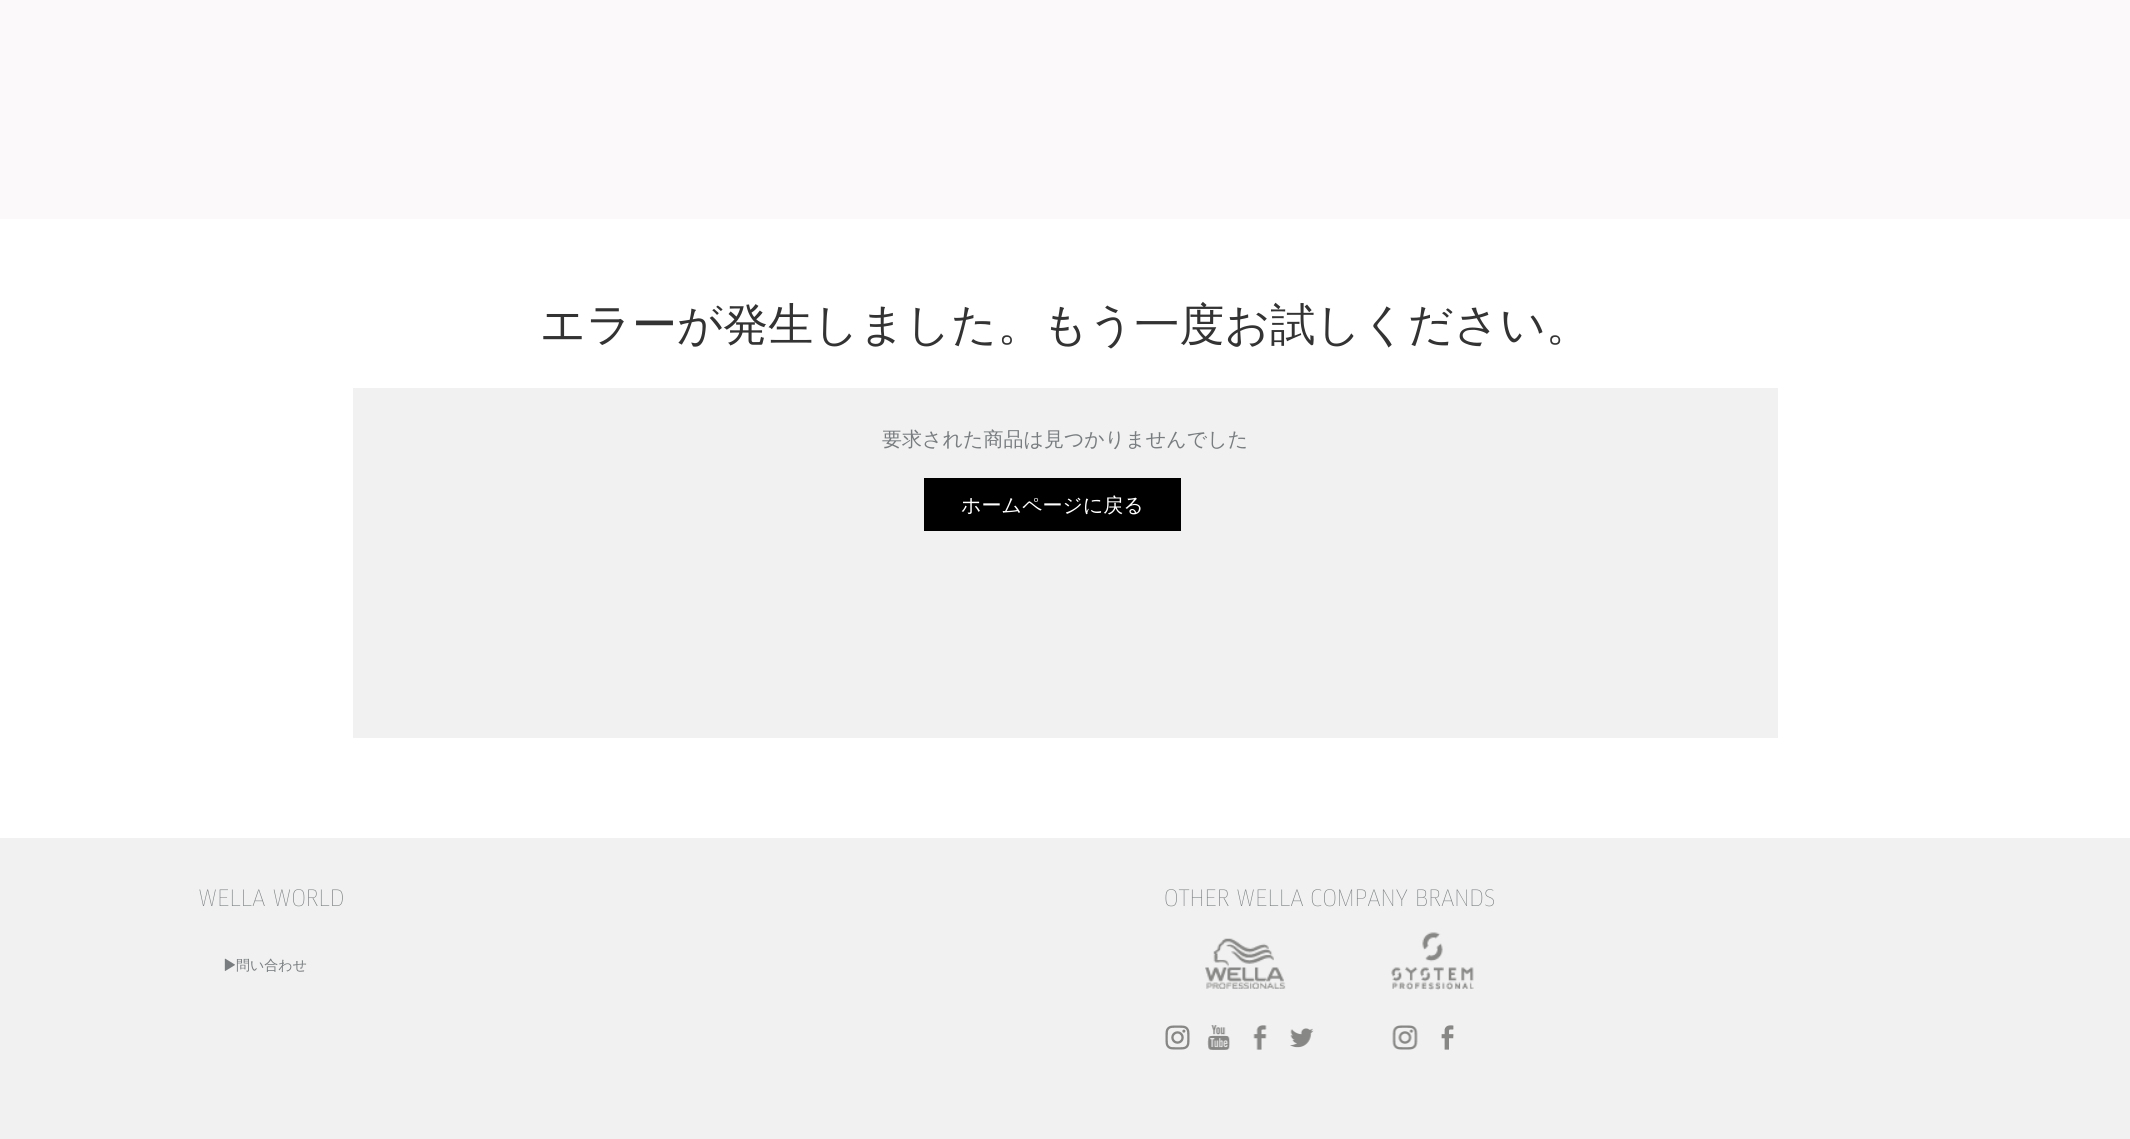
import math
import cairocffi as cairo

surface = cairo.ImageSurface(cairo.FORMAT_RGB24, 2130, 1139)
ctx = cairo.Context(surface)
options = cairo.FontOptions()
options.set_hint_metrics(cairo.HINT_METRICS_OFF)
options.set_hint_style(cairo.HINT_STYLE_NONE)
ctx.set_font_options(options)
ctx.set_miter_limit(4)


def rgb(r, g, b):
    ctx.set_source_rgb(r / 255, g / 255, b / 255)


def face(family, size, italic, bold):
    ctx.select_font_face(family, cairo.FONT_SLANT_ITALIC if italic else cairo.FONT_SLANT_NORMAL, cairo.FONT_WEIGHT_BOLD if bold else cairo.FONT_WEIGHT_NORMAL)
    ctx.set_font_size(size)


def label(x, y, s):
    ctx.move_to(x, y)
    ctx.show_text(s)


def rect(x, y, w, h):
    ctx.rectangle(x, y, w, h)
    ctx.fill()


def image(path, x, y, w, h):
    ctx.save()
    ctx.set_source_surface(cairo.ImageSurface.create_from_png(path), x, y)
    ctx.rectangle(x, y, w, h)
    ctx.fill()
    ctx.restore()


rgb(255, 255, 255)
ctx.paint()
rgb(251, 249, 250)
rect(0, 0, 2130, 219)
face('WenQuanYi Zen Hei Medium', 45, 0, 0)
rgb(51, 51, 51)
label(540, 340, 'エラーが発生しました。もう一度お試しください。')
rgb(241, 241, 241)
rect(353, 388, 1425, 350)
face('WenQuanYi Zen Hei Medium', 20, 0, 0)
rgb(121, 125, 127)
label(882, 446, '要求された商品は見つかりませんでした')
rgb(0, 0, 0)
rect(924, 478, 257, 53)
rgb(255, 255, 255)
label(961, 512, 'ホームページに戻る')
rgb(241, 241, 241)
rect(0, 838, 2130, 301)
face('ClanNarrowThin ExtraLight', 22, 0, 0)
rgb(121, 125, 127)
label(198, 906, 'WELLA WORLD')
image('image0.png', 224, 958, 11, 13)
face('WenQuanYi Zen Hei Medium', 14, 0, 0)
label(236, 970, '問い合わせ')
face('ClanNarrowThin ExtraLight', 22, 0, 0)
label(1164, 906, 'OTHER WELLA COMPANY BRANDS')
image('image1.png', 1205, 938, 81, 51)
image('image2.png', 1165, 1025, 25, 25)
image('image3.png', 1207, 1025, 23, 25)
image('image4.png', 1253, 1025, 14, 25)
image('image5.png', 1290, 1028, 24, 20)
image('image6.png', 1391, 932, 83, 58)
image('image7.png', 1392, 1025, 26, 25)
image('image8.png', 1441, 1025, 13, 25)
surface.write_to_png('render.png')
